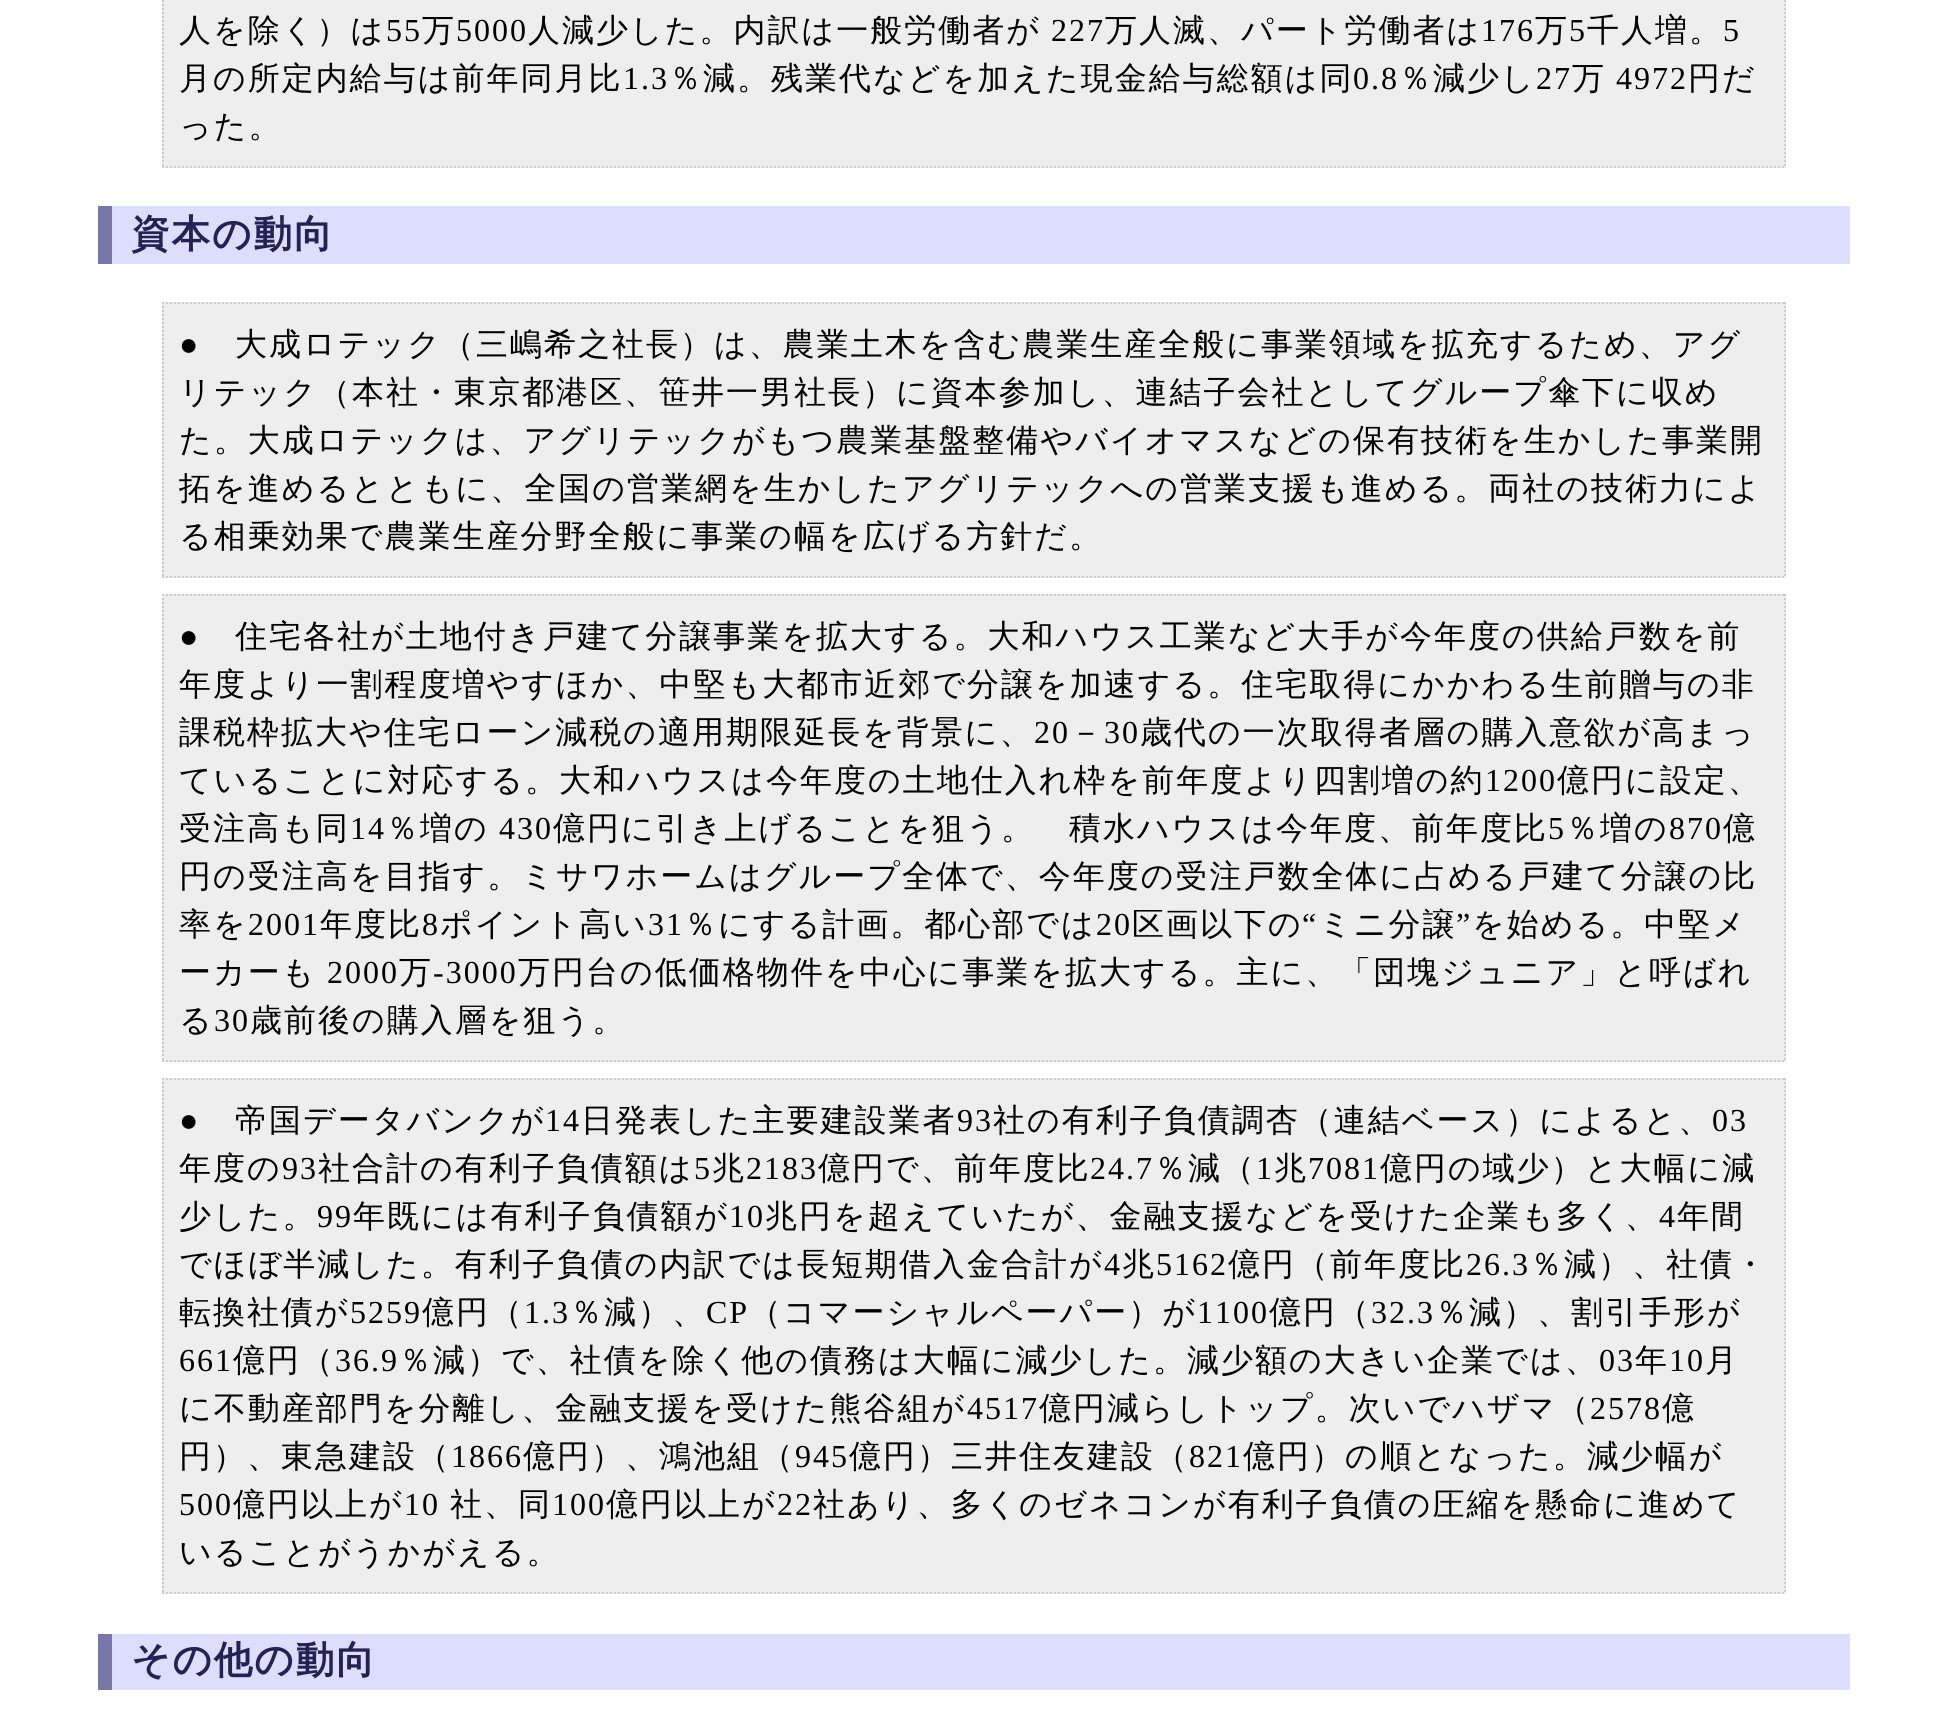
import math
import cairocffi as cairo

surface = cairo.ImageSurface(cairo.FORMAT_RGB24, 1947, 1730)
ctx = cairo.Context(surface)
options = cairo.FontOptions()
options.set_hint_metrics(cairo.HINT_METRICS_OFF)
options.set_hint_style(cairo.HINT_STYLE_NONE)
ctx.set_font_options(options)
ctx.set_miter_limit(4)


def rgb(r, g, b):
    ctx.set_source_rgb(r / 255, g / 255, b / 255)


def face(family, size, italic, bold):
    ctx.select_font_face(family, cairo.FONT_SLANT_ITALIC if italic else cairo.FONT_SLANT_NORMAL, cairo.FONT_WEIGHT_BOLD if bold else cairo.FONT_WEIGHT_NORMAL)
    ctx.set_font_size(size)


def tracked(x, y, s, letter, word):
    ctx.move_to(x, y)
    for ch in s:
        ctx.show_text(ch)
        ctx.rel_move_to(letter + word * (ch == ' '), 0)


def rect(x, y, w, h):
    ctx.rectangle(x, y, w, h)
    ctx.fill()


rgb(255, 255, 255)
ctx.paint()
rgb(238, 238, 238)
rect(162, 0, 1624, 168)
ctx.new_path()
ctx.move_to(1785, -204)
ctx.line_to(1785, 168)
rgb(204, 204, 204)
ctx.set_dash([2, 2])
ctx.stroke()
ctx.new_path()
ctx.move_to(162, 167)
ctx.line_to(1786, 167)
ctx.stroke()
ctx.new_path()
ctx.move_to(163, -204)
ctx.line_to(163, 168)
ctx.stroke()
face('WenQuanYi Zen Hei Medium', 32, 0, 0)
rgb(0, 0, 0)
tracked(179, 41, '人を除く）は', 2, 0)
face('Liberation Serif', 32, 0, 0)
tracked(386, 41, '55', 2, 0)
face('WenQuanYi Zen Hei Medium', 32, 0, 0)
tracked(422, 41, '万', 2, 0)
face('Liberation Serif', 32, 0, 0)
tracked(456, 41, '5000', 2, 0)
face('WenQuanYi Zen Hei Medium', 32, 0, 0)
tracked(528, 41, '人減少した。内訳は一般労働者が', 2, 0)
face('Liberation Serif', 32, 0, 0)
tracked(1051, 41, '227', 2, 0)
face('WenQuanYi Zen Hei Medium', 32, 0, 0)
tracked(1105, 41, '万人滅、パート労働者は', 2, 0)
face('Liberation Serif', 32, 0, 0)
tracked(1481, 41, '176', 2, 0)
face('WenQuanYi Zen Hei Medium', 32, 0, 0)
tracked(1535, 41, '万', 2, 0)
face('Liberation Serif', 32, 0, 0)
tracked(1569, 41, '5', 2, 0)
face('WenQuanYi Zen Hei Medium', 32, 0, 0)
tracked(1587, 41, '千人増。', 2, 0)
face('Liberation Serif', 32, 0, 0)
tracked(1723, 41, '5', 2, 0)
face('WenQuanYi Zen Hei Medium', 32, 0, 0)
tracked(179, 89, '月の所定内給与は前年同月比', 2, 0)
face('Liberation Serif', 32, 0, 0)
tracked(623, 89, '1.3', 2, 0)
face('WenQuanYi Zen Hei Medium', 32, 0, 0)
tracked(669, 89, '％減。残業代などを加えた現金給与総額は同', 2, 0)
face('Liberation Serif', 32, 0, 0)
tracked(1353, 89, '0.8', 2, 0)
face('WenQuanYi Zen Hei Medium', 32, 0, 0)
tracked(1399, 89, '％減少し', 2, 0)
face('Liberation Serif', 32, 0, 0)
tracked(1536, 89, '27', 2, 0)
face('WenQuanYi Zen Hei Medium', 32, 0, 0)
tracked(1572, 89, '万', 2, 0)
face('Liberation Serif', 32, 0, 0)
tracked(1616, 89, '4972', 2, 0)
face('WenQuanYi Zen Hei Medium', 32, 0, 0)
tracked(1688, 89, '円だ', 2, 0)
tracked(179, 137, 'った。', 2, 0)
rgb(221, 221, 255)
rect(112, 206, 1738, 58)
rgb(119, 119, 170)
rect(98, 206, 14, 58)
face('WenQuanYi Zen Hei', 38.5, 0, 1)
rgb(34, 34, 85)
tracked(131, 247, '資本の動向', 2, 0)
rgb(238, 238, 238)
rect(162, 302, 1624, 276)
ctx.new_path()
ctx.move_to(162, 303)
ctx.line_to(1786, 303)
rgb(204, 204, 204)
ctx.stroke()
ctx.new_path()
ctx.move_to(1785, 302)
ctx.line_to(1785, 578)
ctx.stroke()
ctx.new_path()
ctx.move_to(162, 577)
ctx.line_to(1786, 577)
ctx.stroke()
ctx.new_path()
ctx.move_to(163, 302)
ctx.line_to(163, 578)
ctx.stroke()
face('Liberation Serif', 32, 0, 0)
rgb(0, 0, 0)
tracked(179, 355, '●', 2, 0)
face('WenQuanYi Zen Hei Medium', 32, 0, 0)
tracked(235, 355, '大成ロテック（三嶋希之社長）は、農業土木を含む農業生産全般に事業領域を拡充するため、アグ', 2, 0)
tracked(179, 403, 'リテック（本社・東京都港区、笹井一男社長）に資本参加し、連結子会社としてグループ傘下に収め', 2, 0)
tracked(179, 451, 'た。大成ロテックは、アグリテックがもつ農業基盤整備やバイオマスなどの保有技術を生かした事業開', 2, 0)
tracked(179, 499, '拓を進めるとともに、全国の営業網を生かしたアグリテックへの営業支援も進める。両社の技術力によ', 2, 0)
tracked(179, 547, 'る相乗効果で農業生産分野全般に事業の幅を広げる方針だ。', 2, 0)
rgb(238, 238, 238)
rect(162, 594, 1624, 468)
ctx.new_path()
ctx.move_to(162, 595)
ctx.line_to(1786, 595)
rgb(204, 204, 204)
ctx.stroke()
ctx.new_path()
ctx.move_to(1785, 594)
ctx.line_to(1785, 1062)
ctx.stroke()
ctx.new_path()
ctx.move_to(162, 1061)
ctx.line_to(1786, 1061)
ctx.stroke()
ctx.new_path()
ctx.move_to(163, 594)
ctx.line_to(163, 1062)
ctx.stroke()
face('Liberation Serif', 32, 0, 0)
rgb(0, 0, 0)
tracked(179, 647, '●', 2, 0)
face('WenQuanYi Zen Hei Medium', 32, 0, 0)
tracked(235, 647, '住宅各社が土地付き戸建て分譲事業を拡大する。大和ハウス工業など大手が今年度の供給戸数を前', 2, 0)
tracked(179, 695, '年度より一割程度増やすほか、中堅も大都市近郊で分譲を加速する。住宅取得にかかわる生前贈与の非', 2, 0)
tracked(179, 743, '課税枠拡大や住宅ローン減税の適用期限延長を背景に、', 2, 0)
face('Liberation Serif', 32, 0, 0)
tracked(1034, 743, '20', 2, 0)
face('WenQuanYi Zen Hei Medium', 32, 0, 0)
tracked(1070, 743, '－', 2, 0)
face('Liberation Serif', 32, 0, 0)
tracked(1104, 743, '30', 2, 0)
face('WenQuanYi Zen Hei Medium', 32, 0, 0)
tracked(1140, 743, '歳代の一次取得者層の購入意欲が高まっ', 2, 0)
tracked(179, 791, 'ていることに対応する。大和ハウスは今年度の土地仕入れ枠を前年度より四割増の約', 2, 0)
face('Liberation Serif', 32, 0, 0)
tracked(1485, 791, '1200', 2, 0)
face('WenQuanYi Zen Hei Medium', 32, 0, 0)
tracked(1557, 791, '億円に設定、', 2, 0)
tracked(179, 839, '受注高も同', 2, 0)
face('Liberation Serif', 32, 0, 0)
tracked(350, 839, '14', 2, 0)
face('WenQuanYi Zen Hei Medium', 32, 0, 0)
tracked(386, 839, '％増の', 2, 0)
face('Liberation Serif', 32, 0, 0)
tracked(499, 839, '430', 2, 0)
face('WenQuanYi Zen Hei Medium', 32, 0, 0)
tracked(553, 839, '億円に引き上げることを狙う。　積水ハウスは今年度、前年度比', 2, 0)
face('Liberation Serif', 32, 0, 0)
tracked(1548, 839, '5', 2, 0)
face('WenQuanYi Zen Hei Medium', 32, 0, 0)
tracked(1566, 839, '％増の', 2, 0)
face('Liberation Serif', 32, 0, 0)
tracked(1669, 839, '870', 2, 0)
face('WenQuanYi Zen Hei Medium', 32, 0, 0)
tracked(1723, 839, '億', 2, 0)
tracked(179, 887, '円の受注高を目指す。ミサワホームはグループ全体で、今年度の受注戸数全体に占める戸建て分譲の比', 2, 0)
tracked(179, 935, '率を', 2, 0)
face('Liberation Serif', 32, 0, 0)
tracked(248, 935, '2001', 2, 0)
face('WenQuanYi Zen Hei Medium', 32, 0, 0)
tracked(320, 935, '年度比', 2, 0)
face('Liberation Serif', 32, 0, 0)
tracked(422, 935, '8', 2, 0)
face('WenQuanYi Zen Hei Medium', 32, 0, 0)
tracked(440, 935, 'ポイント高い', 2, 0)
face('Liberation Serif', 32, 0, 0)
tracked(648, 935, '31', 2, 0)
face('WenQuanYi Zen Hei Medium', 32, 0, 0)
tracked(684, 935, '％にする計画。都心部では', 2, 0)
face('Liberation Serif', 32, 0, 0)
tracked(1096, 935, '20', 2, 0)
face('WenQuanYi Zen Hei Medium', 32, 0, 0)
tracked(1132, 935, '区画以下の', 2, 0)
face('Liberation Serif', 32, 0, 0)
tracked(1302, 935, '“', 2, 0)
face('WenQuanYi Zen Hei Medium', 32, 0, 0)
tracked(1319, 935, 'ミニ分譲', 2, 0)
face('Liberation Serif', 32, 0, 0)
tracked(1456, 935, '”', 2, 0)
face('WenQuanYi Zen Hei Medium', 32, 0, 0)
tracked(1472, 935, 'を始める。中堅メ', 2, 0)
tracked(179, 983, 'ーカーも', 2, 0)
face('Liberation Serif', 32, 0, 0)
tracked(327, 983, '2000', 2, 0)
face('WenQuanYi Zen Hei Medium', 32, 0, 0)
tracked(399, 983, '万', 2, 0)
face('Liberation Serif', 32, 0, 0)
tracked(433, 983, '-3000', 2, 0)
face('WenQuanYi Zen Hei Medium', 32, 0, 0)
tracked(518, 983, '万円台の低価格物件を中心に事業を拡大する。主に、「団塊ジュニア」と呼ばれ', 2, 0)
tracked(179, 1031, 'る', 2, 0)
face('Liberation Serif', 32, 0, 0)
tracked(214, 1031, '30', 2, 0)
face('WenQuanYi Zen Hei Medium', 32, 0, 0)
tracked(250, 1031, '歳前後の購入層を狙う。', 2, 0)
rgb(238, 238, 238)
rect(162, 1078, 1624, 516)
ctx.new_path()
ctx.move_to(162, 1079)
ctx.line_to(1786, 1079)
rgb(204, 204, 204)
ctx.stroke()
ctx.new_path()
ctx.move_to(1785, 1078)
ctx.line_to(1785, 1594)
ctx.stroke()
ctx.new_path()
ctx.move_to(162, 1593)
ctx.line_to(1786, 1593)
ctx.stroke()
ctx.new_path()
ctx.move_to(163, 1078)
ctx.line_to(163, 1594)
ctx.stroke()
face('Liberation Serif', 32, 0, 0)
rgb(0, 0, 0)
tracked(179, 1131, '●', 2, 0)
face('WenQuanYi Zen Hei Medium', 32, 0, 0)
tracked(235, 1131, '帝国データバンクが', 2, 0)
face('Liberation Serif', 32, 0, 0)
tracked(545, 1131, '14', 2, 0)
face('WenQuanYi Zen Hei Medium', 32, 0, 0)
tracked(581, 1131, '日発表した主要建設業者', 2, 0)
face('Liberation Serif', 32, 0, 0)
tracked(957, 1131, '93', 2, 0)
face('WenQuanYi Zen Hei Medium', 32, 0, 0)
tracked(993, 1131, '社の有利子負債調杏（連結ベース）によると、', 2, 0)
face('Liberation Serif', 32, 0, 0)
tracked(1712, 1131, '03', 2, 0)
face('WenQuanYi Zen Hei Medium', 32, 0, 0)
tracked(179, 1179, '年度の', 2, 0)
face('Liberation Serif', 32, 0, 0)
tracked(282, 1179, '93', 2, 0)
face('WenQuanYi Zen Hei Medium', 32, 0, 0)
tracked(318, 1179, '社合計の有利子負債額は', 2, 0)
face('Liberation Serif', 32, 0, 0)
tracked(694, 1179, '5', 2, 0)
face('WenQuanYi Zen Hei Medium', 32, 0, 0)
tracked(712, 1179, '兆', 2, 0)
face('Liberation Serif', 32, 0, 0)
tracked(746, 1179, '2183', 2, 0)
face('WenQuanYi Zen Hei Medium', 32, 0, 0)
tracked(818, 1179, '億円で、前年度比', 2, 0)
face('Liberation Serif', 32, 0, 0)
tracked(1090, 1179, '24.7', 2, 0)
face('WenQuanYi Zen Hei Medium', 32, 0, 0)
tracked(1154, 1179, '％減（', 2, 0)
face('Liberation Serif', 32, 0, 0)
tracked(1256, 1179, '1', 2, 0)
face('WenQuanYi Zen Hei Medium', 32, 0, 0)
tracked(1274, 1179, '兆', 2, 0)
face('Liberation Serif', 32, 0, 0)
tracked(1308, 1179, '7081', 2, 0)
face('WenQuanYi Zen Hei Medium', 32, 0, 0)
tracked(1380, 1179, '億円の域少）と大幅に減', 2, 0)
tracked(179, 1227, '少した。', 2, 0)
face('Liberation Serif', 32, 0, 0)
tracked(317, 1227, '99', 2, 0)
face('WenQuanYi Zen Hei Medium', 32, 0, 0)
tracked(353, 1227, '年既には有利子負債額が', 2, 0)
face('Liberation Serif', 32, 0, 0)
tracked(729, 1227, '10', 2, 0)
face('WenQuanYi Zen Hei Medium', 32, 0, 0)
tracked(765, 1227, '兆円を超えていたが、金融支援などを受けた企業も多く、', 2, 0)
face('Liberation Serif', 32, 0, 0)
tracked(1659, 1227, '4', 2, 0)
face('WenQuanYi Zen Hei Medium', 32, 0, 0)
tracked(1677, 1227, '年間', 2, 0)
tracked(179, 1275, 'でほぼ半減した。有利子負債の内訳では長短期借入金合計が', 2, 0)
face('Liberation Serif', 32, 0, 0)
tracked(1104, 1275, '4', 2, 0)
face('WenQuanYi Zen Hei Medium', 32, 0, 0)
tracked(1122, 1275, '兆', 2, 0)
face('Liberation Serif', 32, 0, 0)
tracked(1156, 1275, '5162', 2, 0)
face('WenQuanYi Zen Hei Medium', 32, 0, 0)
tracked(1228, 1275, '億円（前年度比', 2, 0)
face('Liberation Serif', 32, 0, 0)
tracked(1466, 1275, '26.3', 2, 0)
face('WenQuanYi Zen Hei Medium', 32, 0, 0)
tracked(1530, 1275, '％減）、社債・', 2, 0)
tracked(179, 1323, '転換社債が', 2, 0)
face('Liberation Serif', 32, 0, 0)
tracked(350, 1323, '5259', 2, 0)
face('WenQuanYi Zen Hei Medium', 32, 0, 0)
tracked(422, 1323, '億円（', 2, 0)
face('Liberation Serif', 32, 0, 0)
tracked(524, 1323, '1.3', 2, 0)
face('WenQuanYi Zen Hei Medium', 32, 0, 0)
tracked(570, 1323, '％減）、', 2, 0)
face('Liberation Serif', 32, 0, 0)
tracked(706, 1323, 'CP', 2, 0)
face('WenQuanYi Zen Hei Medium', 32, 0, 0)
tracked(749, 1323, '（コマーシャルペーパー）が', 2, 0)
face('Liberation Serif', 32, 0, 0)
tracked(1197, 1323, '1100', 2, 0)
face('WenQuanYi Zen Hei Medium', 32, 0, 0)
tracked(1269, 1323, '億円（', 2, 0)
face('Liberation Serif', 32, 0, 0)
tracked(1371, 1323, '32.3', 2, 0)
face('WenQuanYi Zen Hei Medium', 32, 0, 0)
tracked(1435, 1323, '％減）、割引手形が', 2, 0)
face('Liberation Serif', 32, 0, 0)
tracked(179, 1371, '661', 2, 0)
face('WenQuanYi Zen Hei Medium', 32, 0, 0)
tracked(233, 1371, '億円（', 2, 0)
face('Liberation Serif', 32, 0, 0)
tracked(335, 1371, '36.9', 2, 0)
face('WenQuanYi Zen Hei Medium', 32, 0, 0)
tracked(399, 1371, '％減）で、社債を除く他の債務は大幅に減少した。減少額の大きい企業では、', 2, 0)
face('Liberation Serif', 32, 0, 0)
tracked(1599, 1371, '03', 2, 0)
face('WenQuanYi Zen Hei Medium', 32, 0, 0)
tracked(1635, 1371, '年', 2, 0)
face('Liberation Serif', 32, 0, 0)
tracked(1669, 1371, '10', 2, 0)
face('WenQuanYi Zen Hei Medium', 32, 0, 0)
tracked(1705, 1371, '月', 2, 0)
tracked(179, 1419, 'に不動産部門を分離し、金融支援を受けた熊谷組が', 2, 0)
face('Liberation Serif', 32, 0, 0)
tracked(967, 1419, '4517', 2, 0)
face('WenQuanYi Zen Hei Medium', 32, 0, 0)
tracked(1039, 1419, '億円減らしトップ。次いでハザマ（', 2, 0)
face('Liberation Serif', 32, 0, 0)
tracked(1590, 1419, '2578', 2, 0)
face('WenQuanYi Zen Hei Medium', 32, 0, 0)
tracked(1662, 1419, '億', 2, 0)
tracked(179, 1467, '円）、東急建設（', 2, 0)
face('Liberation Serif', 32, 0, 0)
tracked(451, 1467, '1866', 2, 0)
face('WenQuanYi Zen Hei Medium', 32, 0, 0)
tracked(523, 1467, '億円）、鴻池組（', 2, 0)
face('Liberation Serif', 32, 0, 0)
tracked(795, 1467, '945', 2, 0)
face('WenQuanYi Zen Hei Medium', 32, 0, 0)
tracked(849, 1467, '億円）三井住友建設（', 2, 0)
face('Liberation Serif', 32, 0, 0)
tracked(1189, 1467, '821', 2, 0)
face('WenQuanYi Zen Hei Medium', 32, 0, 0)
tracked(1243, 1467, '億円）の順となった。減少幅が', 2, 0)
face('Liberation Serif', 32, 0, 0)
tracked(179, 1515, '500', 2, 0)
face('WenQuanYi Zen Hei Medium', 32, 0, 0)
tracked(233, 1515, '億円以上が', 2, 0)
face('Liberation Serif', 32, 0, 0)
tracked(404, 1515, '10', 2, 0)
face('WenQuanYi Zen Hei Medium', 32, 0, 0)
tracked(450, 1515, '社、同', 2, 0)
face('Liberation Serif', 32, 0, 0)
tracked(552, 1515, '100', 2, 0)
face('WenQuanYi Zen Hei Medium', 32, 0, 0)
tracked(606, 1515, '億円以上が', 2, 0)
face('Liberation Serif', 32, 0, 0)
tracked(777, 1515, '22', 2, 0)
face('WenQuanYi Zen Hei Medium', 32, 0, 0)
tracked(813, 1515, '社あり、多くのゼネコンが有利子負債の圧縮を懸命に進めて', 2, 0)
tracked(179, 1563, 'いることがうかがえる。', 2, 0)
rgb(221, 221, 255)
rect(112, 1634, 1738, 56)
rgb(119, 119, 170)
rect(98, 1634, 14, 56)
face('WenQuanYi Zen Hei', 38.5, 0, 1)
rgb(34, 34, 85)
tracked(131, 1673, 'その他の動向', 2, 0)
surface.write_to_png('render.png')
